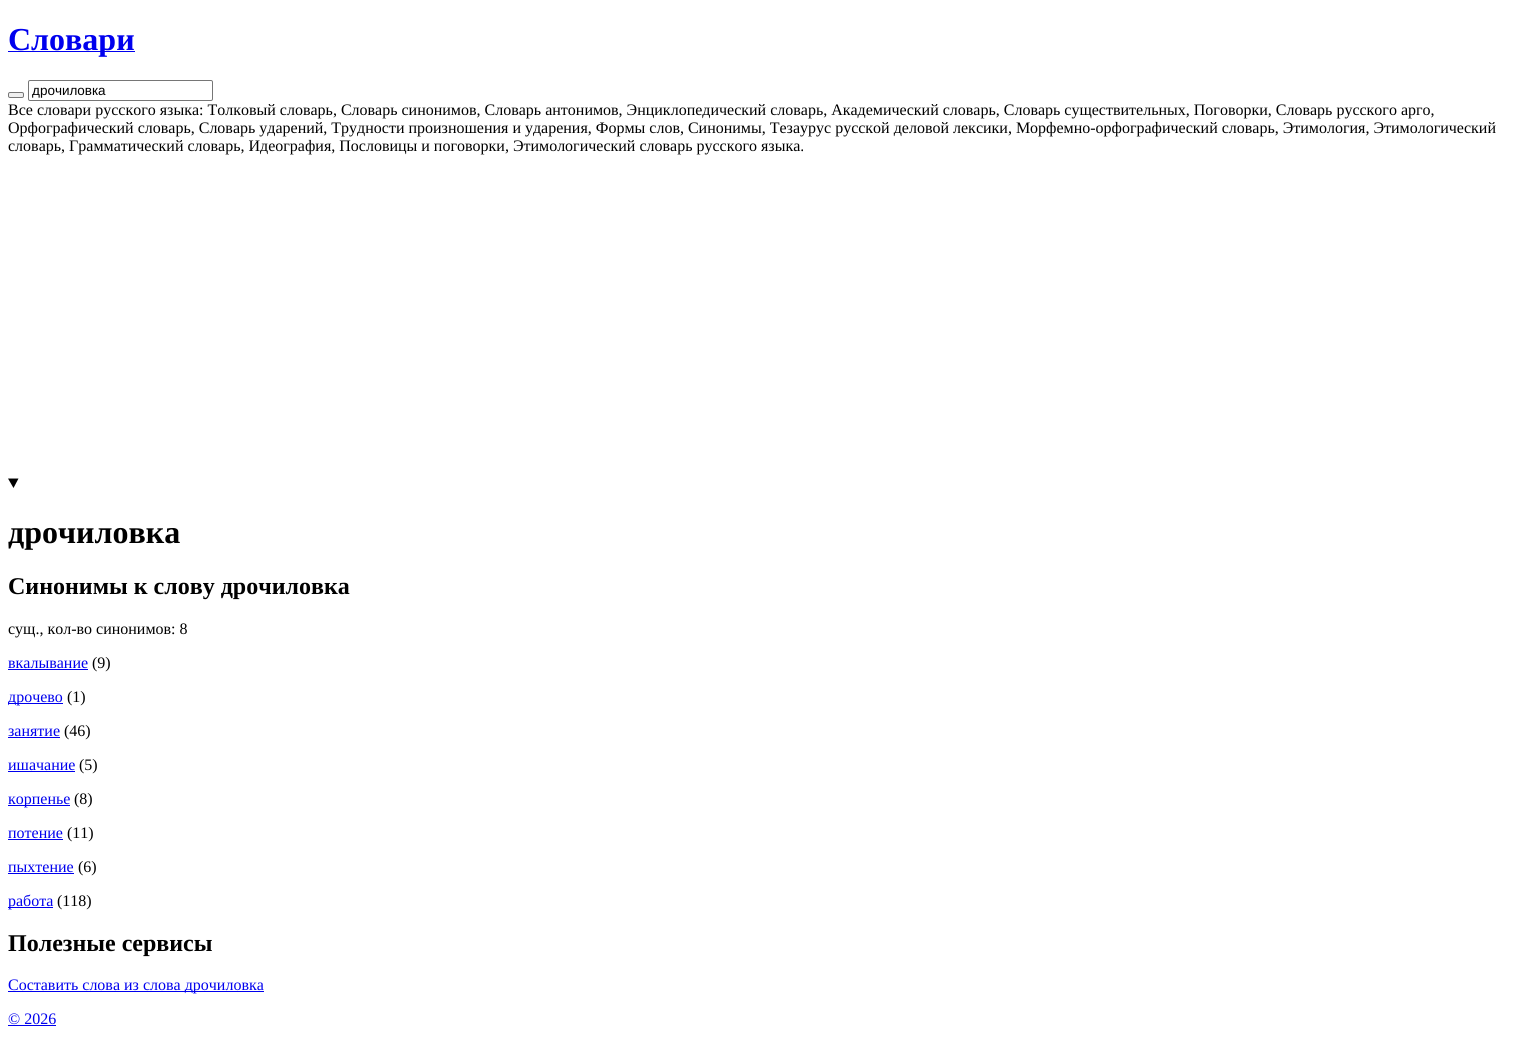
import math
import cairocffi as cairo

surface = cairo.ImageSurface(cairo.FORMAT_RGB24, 1530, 1037)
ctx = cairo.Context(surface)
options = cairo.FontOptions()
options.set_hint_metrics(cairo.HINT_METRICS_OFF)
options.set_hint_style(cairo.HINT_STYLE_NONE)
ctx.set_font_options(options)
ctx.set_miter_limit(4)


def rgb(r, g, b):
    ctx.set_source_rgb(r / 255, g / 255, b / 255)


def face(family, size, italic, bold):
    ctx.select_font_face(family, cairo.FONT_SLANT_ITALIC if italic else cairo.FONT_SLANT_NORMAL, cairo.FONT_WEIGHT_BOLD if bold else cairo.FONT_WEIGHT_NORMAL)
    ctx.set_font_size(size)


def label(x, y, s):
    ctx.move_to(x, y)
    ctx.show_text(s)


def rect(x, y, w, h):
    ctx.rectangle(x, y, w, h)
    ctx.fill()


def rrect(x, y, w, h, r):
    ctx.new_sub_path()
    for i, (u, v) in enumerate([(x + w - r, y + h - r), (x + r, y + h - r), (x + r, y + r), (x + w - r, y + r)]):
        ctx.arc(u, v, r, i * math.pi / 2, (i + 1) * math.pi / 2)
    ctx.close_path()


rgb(255, 255, 255)
ctx.paint()
rgb(0, 0, 238)
rect(8, 51, 127, 1)
face('Liberation Serif', 32, 0, 1)
label(8, 50, 'Словари')
rgb(239, 239, 239)
rrect(8.5, 92.5, 15, 5, 1.5)
ctx.fill_preserve()
rgb(118, 118, 118)
ctx.set_line_width(1)
ctx.stroke()
rrect(28.5, 80.5, 184, 20, 1.5)
ctx.stroke()
face('Liberation Sans', 13.5, 0, 0)
rgb(0, 0, 0)
label(32, 95, 'дрочиловка')
face('Liberation Serif', 16, 0, 0)
label(8, 115, 'Все словари русского языка: Толковый словарь, Словарь синонимов, Словарь антонимов, Энциклопедический словарь, Академический словарь, Словарь существительных, Поговорки, Словарь русского арго,')
label(8, 133, 'Орфографический словарь, Словарь ударений, Трудности произношения и ударения, Формы слов, Синонимы, Тезаурус русской деловой лексики, Морфемно-орфографический словарь, Этимология, Этимологический')
label(8, 151, 'словарь, Грамматический словарь, Идеография, Пословицы и поговорки, Этимологический словарь русского языка.')
ctx.new_path()
ctx.move_to(8, 478.5)
ctx.line_to(18.5, 478.5)
ctx.line_to(13.5, 488)
ctx.close_path()
ctx.fill()
face('Liberation Serif', 32, 0, 1)
label(8, 543, 'дрочиловка')
face('Liberation Serif', 24, 0, 1)
label(8, 594, 'Синонимы к слову дрочиловка')
face('Liberation Serif', 16, 0, 0)
label(8, 634, 'сущ., кол-во синонимов: 8')
rgb(0, 0, 238)
label(8, 668, 'вкалывание')
rect(8, 669, 80, 1)
rgb(0, 0, 0)
label(92, 668, '(9)')
rgb(0, 0, 238)
rect(8, 703, 55, 1)
label(8, 702, 'дрочево')
rgb(0, 0, 0)
label(67, 702, '(1)')
rgb(0, 0, 238)
label(8, 736, 'занятие')
rect(8, 737, 52, 1)
rgb(0, 0, 0)
label(64, 736, '(46)')
rgb(0, 0, 238)
label(8, 770, 'ишачание')
rect(8, 771, 67, 1)
rgb(0, 0, 0)
label(79, 770, '(5)')
rgb(0, 0, 238)
rect(8, 805, 62, 1)
label(8, 804, 'корпенье')
rgb(0, 0, 0)
label(74, 804, '(8)')
rgb(0, 0, 238)
label(8, 838, 'потение')
rect(8, 839, 55, 1)
rgb(0, 0, 0)
label(67, 838, '(11)')
rgb(0, 0, 238)
label(8, 872, 'пыхтение')
rect(8, 873, 66, 1)
rgb(0, 0, 0)
label(78, 872, '(6)')
rgb(0, 0, 238)
rect(8, 907, 45, 1)
label(8, 906, 'работа')
rgb(0, 0, 0)
label(57, 906, '(118)')
face('Liberation Serif', 24, 0, 1)
label(8, 951, 'Полезные сервисы')
rgb(0, 0, 238)
rect(8, 991, 256, 1)
face('Liberation Serif', 16, 0, 0)
label(8, 990, 'Составить слова из слова дрочиловка')
label(8, 1024, '© 2026')
rect(8, 1025, 48, 1)
surface.write_to_png('render.png')
